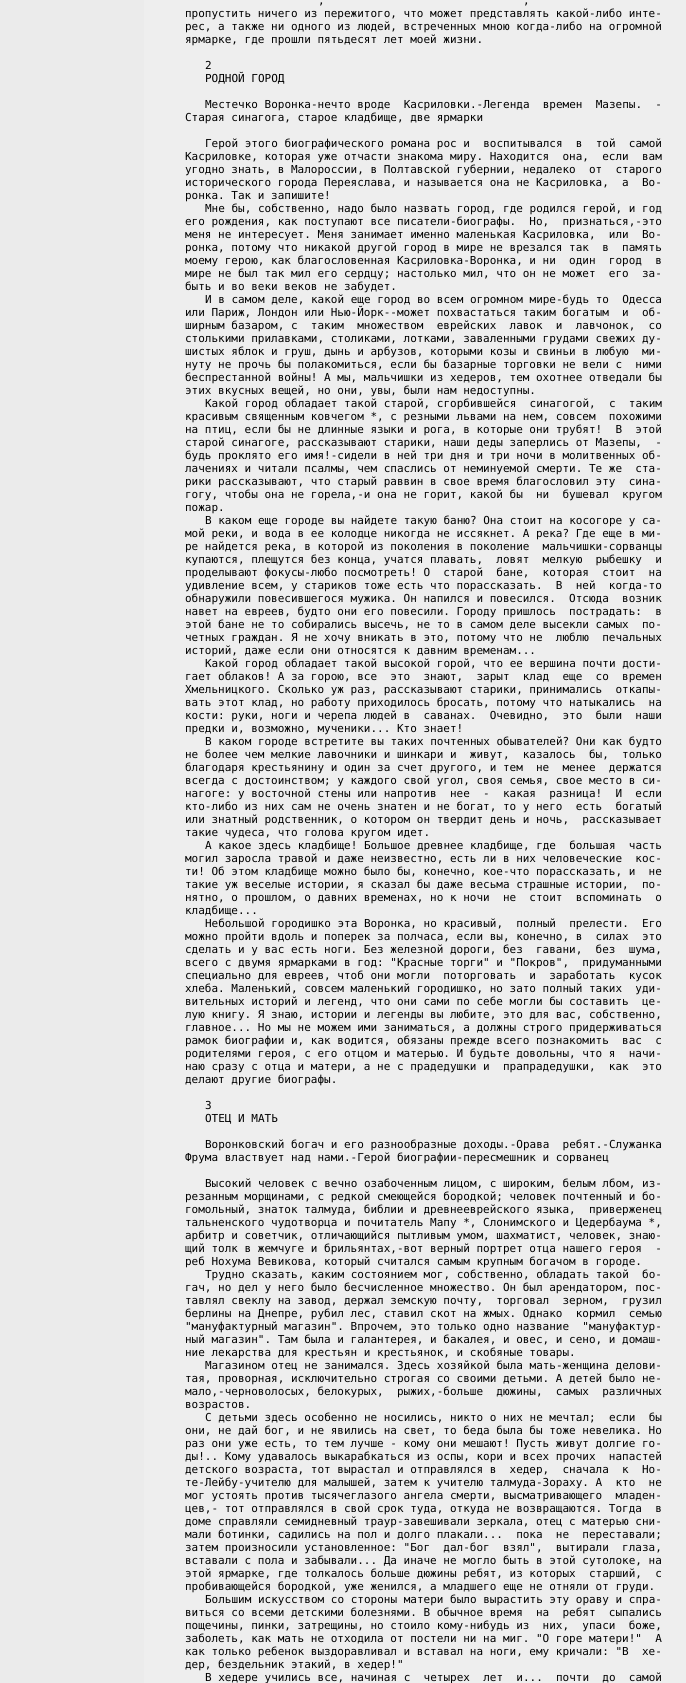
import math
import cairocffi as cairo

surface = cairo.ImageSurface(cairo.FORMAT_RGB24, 686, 1683)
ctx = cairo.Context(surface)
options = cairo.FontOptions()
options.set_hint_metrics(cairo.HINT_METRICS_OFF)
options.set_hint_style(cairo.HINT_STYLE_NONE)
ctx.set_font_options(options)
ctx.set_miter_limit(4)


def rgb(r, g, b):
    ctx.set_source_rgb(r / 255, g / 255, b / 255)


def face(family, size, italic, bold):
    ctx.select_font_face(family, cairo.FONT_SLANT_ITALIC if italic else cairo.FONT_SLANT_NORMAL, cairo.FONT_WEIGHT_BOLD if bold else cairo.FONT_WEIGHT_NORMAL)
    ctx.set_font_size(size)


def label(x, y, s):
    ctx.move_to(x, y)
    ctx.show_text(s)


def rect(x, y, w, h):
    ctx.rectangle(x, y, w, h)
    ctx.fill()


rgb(238, 238, 238)
ctx.paint()
rgb(235, 235, 235)
rect(0, 0, 144, 1683)
face('DejaVu Sans Mono', 11, 0, 0)
rgb(0, 0, 0)
label(318, 4, ',')
label(523, 4, ',')
label(185, 17, 'пропустить ничего из пережитого, что может представлять какой-либо инте-')
label(185, 30, 'рес, а также ни одного из людей, встреченных мною когда-либо на огромной')
label(185, 43, 'ярмарке, где прошли пятьдесят лет моей жизни.')
label(205, 69, '2')
label(205, 82, 'РОДНОЙ ГОРОД')
label(205, 108, 'Местечко Воронка-нечто вроде  Касриловки.-Легенда  времен  Мазепы.  -')
label(185, 121, 'Старая синагога, старое кладбище, две ярмарки')
label(205, 147, 'Герой этого биографического романа рос и  воспитывался  в  той  самой')
label(185, 160, 'Касриловке, которая уже отчасти знакома миру. Находится  она,  если  вам')
label(185, 173, 'угодно знать, в Малороссии, в Полтавской губернии, недалеко  от  старого')
label(185, 186, 'исторического города Переяслава, и называется она не Касриловка,  а  Во-')
label(185, 199, 'ронка. Так и запишите!')
label(205, 212, 'Мне бы, собственно, надо было назвать город, где родился герой, и год')
label(185, 225, 'его рождения, как поступают все писатели-биографы.  Но,  признаться,-это')
label(185, 238, 'меня не интересует. Меня занимает именно маленькая Касриловка,  или  Во-')
label(185, 251, 'ронка, потому что никакой другой город в мире не врезался так  в  память')
label(185, 264, 'моему герою, как благословенная Касриловка-Воронка, и ни  один  город  в')
label(185, 277, 'мире не был так мил его сердцу; настолько мил, что он не может  его  за-')
label(185, 290, 'быть и во веки веков не забудет.')
label(205, 303, 'И в самом деле, какой еще город во всем огромном мире-будь то  Одесса')
label(185, 316, 'или Париж, Лондон или Нью-Йорк--может похвастаться таким богатым  и  об-')
label(185, 329, 'ширным базаром, с  таким  множеством  еврейских  лавок  и  лавчонок,  со')
label(185, 342, 'столькими прилавками, столиками, лотками, заваленными грудами свежих ду-')
label(185, 355, 'шистых яблок и груш, дынь и арбузов, которыми козы и свиньи в любую  ми-')
label(185, 368, 'нуту не прочь бы полакомиться, если бы базарные торговки не вели с  ними')
label(185, 381, 'беспрестанной войны! А мы, мальчишки из хедеров, тем охотнее отведали бы')
label(185, 394, 'этих вкусных вещей, но они, увы, были нам недоступны.')
label(205, 407, 'Какой город обладает такой старой, сгорбившейся  синагогой,  с  таким')
label(185, 420, 'красивым священным ковчегом *, с резными львами на нем, совсем  похожими')
label(185, 433, 'на птиц, если бы не длинные языки и рога, в которые они трубят!  В  этой')
label(185, 446, 'старой синагоге, рассказывают старики, наши деды заперлись от Мазепы,  -')
label(185, 459, 'будь проклято его имя!-сидели в ней три дня и три ночи в молитвенных об-')
label(185, 472, 'лачениях и читали псалмы, чем спаслись от неминуемой смерти. Те же  ста-')
label(185, 485, 'рики рассказывают, что старый раввин в свое время благословил эту  сина-')
label(185, 498, 'гогу, чтобы она не горела,-и она не горит, какой бы  ни  бушевал  кругом')
label(185, 511, 'пожар.')
label(205, 524, 'В каком еще городе вы найдете такую баню? Она стоит на косогоре у са-')
label(185, 537, 'мой реки, и вода в ее колодце никогда не иссякнет. А река? Где еще в ми-')
label(185, 550, 'ре найдется река, в которой из поколения в поколение  мальчишки-сорванцы')
label(185, 563, 'купаются, плещутся без конца, учатся плавать,  ловят  мелкую  рыбешку  и')
label(185, 576, 'проделывают фокусы-любо посмотреть! О  старой  бане,  которая  стоит  на')
label(185, 589, 'удивление всем, у стариков тоже есть что порассказать.  В  ней  когда-то')
label(185, 602, 'обнаружили повесившегося мужика. Он напился и повесился.  Отсюда  возник')
label(185, 615, 'навет на евреев, будто они его повесили. Городу пришлось  пострадать:  в')
label(185, 628, 'этой бане не то собирались высечь, не то в самом деле высекли самых  по-')
label(185, 641, 'четных граждан. Я не хочу вникать в это, потому что не  люблю  печальных')
label(185, 654, 'историй, даже если они относятся к давним временам...')
label(205, 667, 'Какой город обладает такой высокой горой, что ее вершина почти дости-')
label(185, 680, 'гает облаков! А за горою, все  это  знают,  зарыт  клад  еще  со  времен')
label(185, 693, 'Хмельницкого. Сколько уж раз, рассказывают старики, принимались  откапы-')
label(185, 706, 'вать этот клад, но работу приходилось бросать, потому что натыкались  на')
label(185, 719, 'кости: руки, ноги и черепа людей в  саванах.  Очевидно,  это  были  наши')
label(185, 732, 'предки и, возможно, мученики... Кто знает!')
label(205, 745, 'В каком городе встретите вы таких почтенных обывателей? Они как будто')
label(185, 758, 'не более чем мелкие лавочники и шинкари и  живут,  казалось  бы,  только')
label(185, 771, 'благодаря крестьянину и один за счет другого, и тем  не  менее  держатся')
label(185, 784, 'всегда с достоинством; у каждого свой угол, своя семья, свое место в си-')
label(185, 797, 'нагоге: у восточной стены или напротив  нее  -  какая  разница!  И  если')
label(185, 810, 'кто-либо из них сам не очень знатен и не богат, то у него  есть  богатый')
label(185, 823, 'или знатный родственник, о котором он твердит день и ночь,  рассказывает')
label(185, 836, 'такие чудеса, что голова кругом идет.')
label(205, 849, 'А какое здесь кладбище! Большое древнее кладбище, где  большая  часть')
label(185, 862, 'могил заросла травой и даже неизвестно, есть ли в них человеческие  кос-')
label(185, 875, 'ти! Об этом кладбище можно было бы, конечно, кое-что порассказать, и  не')
label(185, 888, 'такие уж веселые истории, я сказал бы даже весьма страшные истории,  по-')
label(185, 901, 'нятно, о прошлом, о давних временах, но к ночи  не  стоит  вспоминать  о')
label(185, 914, 'кладбище...')
label(205, 927, 'Небольшой городишко эта Воронка, но красивый,  полный  прелести.  Его')
label(185, 940, 'можно пройти вдоль и поперек за полчаса, если вы, конечно, в  силах  это')
label(185, 953, 'сделать и у вас есть ноги. Без железной дороги, без  гавани,  без  шума,')
label(185, 966, 'всего с двумя ярмарками в год: "Красные торги" и "Покров",  придуманными')
label(185, 979, 'специально для евреев, чтоб они могли  поторговать  и  заработать  кусок')
label(185, 992, 'хлеба. Маленький, совсем маленький городишко, но зато полный таких  уди-')
label(185, 1005, 'вительных историй и легенд, что они сами по себе могли бы составить  це-')
label(185, 1018, 'лую книгу. Я знаю, истории и легенды вы любите, это для вас, собственно,')
label(185, 1031, 'главное... Но мы не можем ими заниматься, а должны строго придерживаться')
label(185, 1044, 'рамок биографии и, как водится, обязаны прежде всего познакомить  вас  с')
label(185, 1057, 'родителями героя, с его отцом и матерью. И будьте довольны, что я  начи-')
label(185, 1070, 'наю сразу с отца и матери, а не с прадедушки и  прапрадедушки,  как  это')
label(185, 1083, 'делают другие биографы.')
label(205, 1109, '3')
label(205, 1122, 'ОТЕЦ И МАТЬ')
label(205, 1148, 'Воронковский богач и его разнообразные доходы.-Орава  ребят.-Служанка')
label(185, 1161, 'Фрума властвует над нами.-Герой биографии-пересмешник и сорванец')
label(205, 1187, 'Высокий человек с вечно озабоченным лицом, с широким, белым лбом, из-')
label(185, 1200, 'резанным морщинами, с редкой смеющейся бородкой; человек почтенный и бо-')
label(185, 1213, 'гомольный, знаток талмуда, библии и древнееврейского языка,  приверженец')
label(185, 1226, 'тальненского чудотворца и почитатель Maпy *, Слонимского и Цедербаума *,')
label(185, 1239, 'арбитр и советчик, отличающийся пытливым умом, шахматист, человек, знаю-')
label(185, 1252, 'щий толк в жемчуге и брильянтах,-вот верный портрет отца нашего героя  -')
label(185, 1265, 'реб Нохума Вевикова, который считался самым крупным богачом в городе.')
label(205, 1278, 'Трудно сказать, каким состоянием мог, собственно, обладать такой  бо-')
label(185, 1291, 'гач, но дел у него было бесчисленное множество. Он был арендатором, пос-')
label(185, 1304, 'тавлял свеклу на завод, держал земскую почту,  торговал  зерном,  грузил')
label(185, 1317, 'берлины на Днепре, рубил лес, ставил скот на жмых. Однако  кормил  семью')
label(185, 1330, '"мануфактурный магазин". Впрочем, это только одно название  "мануфактур-')
label(185, 1343, 'ный магазин". Там была и галантерея, и бакалея, и овес, и сено, и домаш-')
label(185, 1356, 'ние лекарства для крестьян и крестьянок, и скобяные товары.')
label(205, 1369, 'Магазином отец не занимался. Здесь хозяйкой была мать-женщина делови-')
label(185, 1382, 'тая, проворная, исключительно строгая со своими детьми. А детей было не-')
label(185, 1395, 'мало,-черноволосых, белокурых,  рыжих,-больше  дюжины,  самых  различных')
label(185, 1408, 'возрастов.')
label(205, 1421, 'С детьми здесь особенно не носились, никто о них не мечтал;  если  бы')
label(185, 1434, 'они, не дай бог, и не явились на свет, то беда была бы тоже невелика. Но')
label(185, 1447, 'раз они уже есть, то тем лучше - кому они мешают! Пусть живут долгие го-')
label(185, 1460, 'ды!.. Кому удавалось выкарабкаться из оспы, кори и всех прочих  напастей')
label(185, 1473, 'детского возраста, тот вырастал и отправлялся в  хедер,  сначала  к  Но-')
label(185, 1486, 'те-Лейбу-учителю для малышей, затем к учителю талмуда-Зораху. А  кто  не')
label(185, 1499, 'мог устоять против тысячеглазого ангела смерти, высматривающего  младен-')
label(185, 1512, 'цев,- тот отправлялся в свой срок туда, откуда не возвращаются. Тогда  в')
label(185, 1525, 'доме справляли семидневный траур-завешивали зеркала, отец с матерью сни-')
label(185, 1538, 'мали ботинки, садились на пол и долго плакали...  пока  не  переставали;')
label(185, 1551, 'затем произносили установленное: "Бог  дал-бог  взял",  вытирали  глаза,')
label(185, 1564, 'вставали с пола и забывали... Да иначе не могло быть в этой сутолоке, на')
label(185, 1577, 'этой ярмарке, где толкалось больше дюжины ребят, из которых  старший,  с')
label(185, 1590, 'пробивающейся бородкой, уже женился, а младшего еще не отняли от груди.')
label(205, 1603, 'Большим искусством со стороны матери было вырастить эту ораву и спра-')
label(185, 1616, 'виться со всеми детскими болезнями. В обычное время  на  ребят  сыпались')
label(185, 1629, 'пощечины, пинки, затрещины, но стоило кому-нибудь из  них,  упаси  боже,')
label(185, 1642, 'заболеть, как мать не отходила от постели ни на миг. "О горе матери!"  А')
label(185, 1655, 'как только ребенок выздоравливал и вставал на ноги, ему кричали: "В  хе-')
label(185, 1668, 'дер, бездельник этакий, в хедер!"')
label(205, 1681, 'В хедере учились все, начиная с  четырех  лет  и...  почти  до  самой')
surface.write_to_png('render.png')
